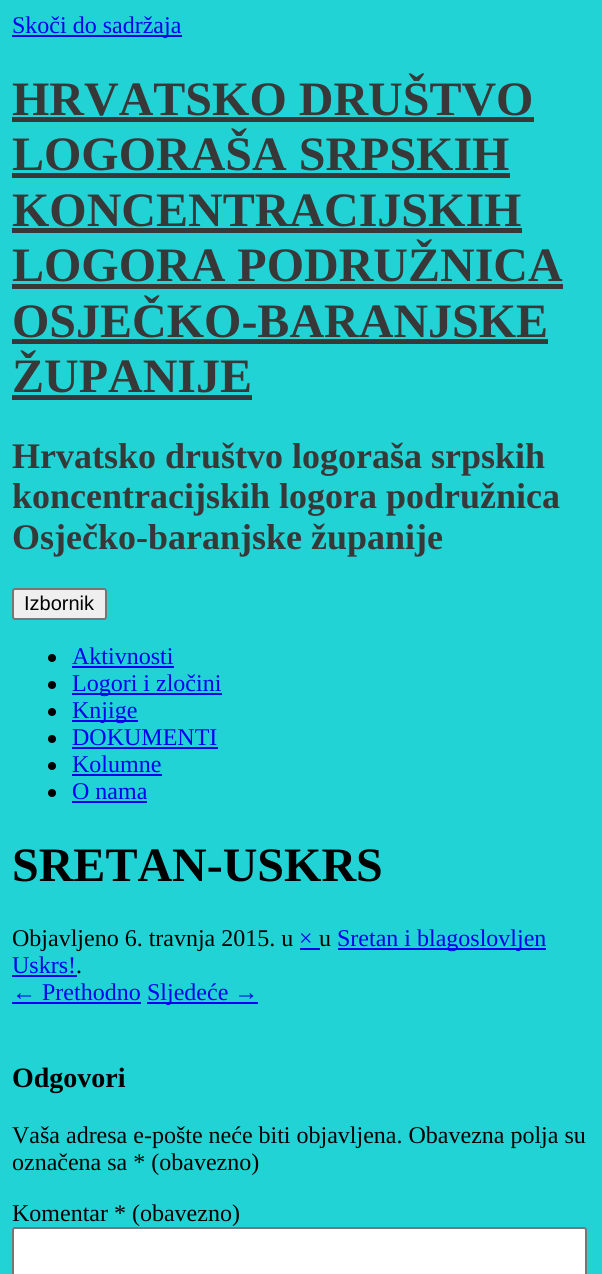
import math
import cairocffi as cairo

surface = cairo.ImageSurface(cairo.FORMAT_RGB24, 602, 1274)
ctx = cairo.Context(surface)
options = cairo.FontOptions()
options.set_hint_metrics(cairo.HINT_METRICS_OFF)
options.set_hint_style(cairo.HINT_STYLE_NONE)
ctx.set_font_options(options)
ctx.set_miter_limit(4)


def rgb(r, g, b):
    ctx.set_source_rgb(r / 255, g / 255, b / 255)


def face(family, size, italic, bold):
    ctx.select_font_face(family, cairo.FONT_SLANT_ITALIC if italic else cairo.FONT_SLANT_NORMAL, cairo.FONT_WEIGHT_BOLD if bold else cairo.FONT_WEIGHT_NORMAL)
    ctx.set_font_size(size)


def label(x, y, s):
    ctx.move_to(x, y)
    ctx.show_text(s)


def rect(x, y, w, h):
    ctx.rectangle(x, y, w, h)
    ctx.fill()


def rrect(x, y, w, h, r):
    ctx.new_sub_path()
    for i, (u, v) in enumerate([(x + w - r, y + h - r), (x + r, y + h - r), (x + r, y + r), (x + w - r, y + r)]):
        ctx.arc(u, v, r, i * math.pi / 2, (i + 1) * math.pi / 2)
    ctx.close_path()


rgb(34, 211, 214)
ctx.paint()
rgb(0, 0, 238)
rect(12, 35, 170, 2)
face('Liberation Serif', 24, 0, 0)
label(12, 33, 'Skoči do sadržaja')
face('Liberation Serif', 48, 0, 1)
rgb(56, 56, 56)
label(12, 115, 'HRVATSKO DRUŠTVO')
rect(12, 117, 522, 5)
label(12, 170, 'LOGORAŠA SRPSKIH')
rect(12, 173, 498, 5)
label(12, 226, 'KONCENTRACIJSKIH')
rect(12, 228, 510, 5)
label(12, 281, 'LOGORA PODRUŽNICA')
rect(12, 284, 551, 5)
label(12, 337, 'OSJEČKO-BARANJSKE')
rect(12, 339, 536, 5)
label(12, 392, 'ŽUPANIJE')
rect(12, 395, 240, 5)
face('Liberation Serif', 36, 0, 1)
label(12, 468, 'Hrvatsko društvo logoraša srpskih')
label(12, 508, 'koncentracijskih logora podružnica')
label(12, 549, 'Osječko-baranjske županije')
rgb(239, 239, 239)
rrect(13, 589, 93, 30, 2)
ctx.fill_preserve()
rgb(118, 118, 118)
ctx.stroke()
face('Liberation Sans', 20, 0, 0)
rgb(0, 0, 0)
label(24, 610, 'Izbornik')
ctx.new_path()
ctx.arc(52, 658, 4, 0, 2 * math.pi)
ctx.fill()
face('Liberation Serif', 24, 0, 0)
rgb(0, 0, 238)
label(72, 664, 'Aktivnosti')
rect(72, 666, 102, 2)
rgb(0, 0, 0)
ctx.new_path()
ctx.arc(52, 685, 4, 0, 2 * math.pi)
ctx.fill()
rgb(0, 0, 238)
rect(72, 693, 150, 2)
label(72, 691, 'Logori i zločini')
rgb(0, 0, 0)
ctx.new_path()
ctx.arc(52, 712, 4, 0, 2 * math.pi)
ctx.fill()
rgb(0, 0, 238)
rect(72, 720, 66, 2)
label(72, 718, 'Knjige')
rgb(0, 0, 0)
ctx.new_path()
ctx.arc(52, 739, 4, 0, 2 * math.pi)
ctx.fill()
rgb(0, 0, 238)
label(72, 745, 'DOKUMENTI')
rect(72, 747, 146, 2)
rgb(0, 0, 0)
ctx.new_path()
ctx.arc(52, 766, 4, 0, 2 * math.pi)
ctx.fill()
rgb(0, 0, 238)
label(72, 772, 'Kolumne')
rect(72, 774, 90, 2)
rgb(0, 0, 0)
ctx.new_path()
ctx.arc(52, 793, 4, 0, 2 * math.pi)
ctx.fill()
rgb(0, 0, 238)
label(72, 799, 'O nama')
rect(72, 801, 75, 2)
face('Liberation Serif', 48, 0, 1)
rgb(0, 0, 0)
label(12, 881, 'SRETAN-USKRS')
face('Liberation Serif', 24, 0, 0)
label(12, 946, 'Objavljeno 6. travnja 2015. u')
rgb(0, 0, 238)
label(299, 946, '×')
rect(300, 948, 20, 2)
rgb(0, 0, 0)
label(319, 946, 'u')
rgb(0, 0, 238)
rect(338, 948, 208, 2)
label(337, 946, 'Sretan i blagoslovljen')
label(12, 973, 'Uskrs!')
rect(12, 975, 65, 2)
rgb(0, 0, 0)
label(76, 973, '.')
rgb(0, 0, 238)
label(12, 1000, '← Prethodno')
rect(12, 1002, 129, 2)
rect(147, 1002, 111, 2)
label(147, 1000, 'Sljedeće →')
face('Liberation Serif', 28, 0, 1)
rgb(0, 0, 0)
label(12, 1087, 'Odgovori')
face('Liberation Serif', 24, 0, 0)
label(12, 1143, 'Vaša adresa e-pošte neće biti objavljena. Obavezna polja su')
label(12, 1170, 'označena sa * (obavezno)')
label(12, 1221, 'Komentar * (obavezno)')
rgb(255, 255, 255)
rrect(13, 1228, 573, 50, 2)
ctx.fill_preserve()
rgb(118, 118, 118)
ctx.stroke()
surface.write_to_png('render.png')
